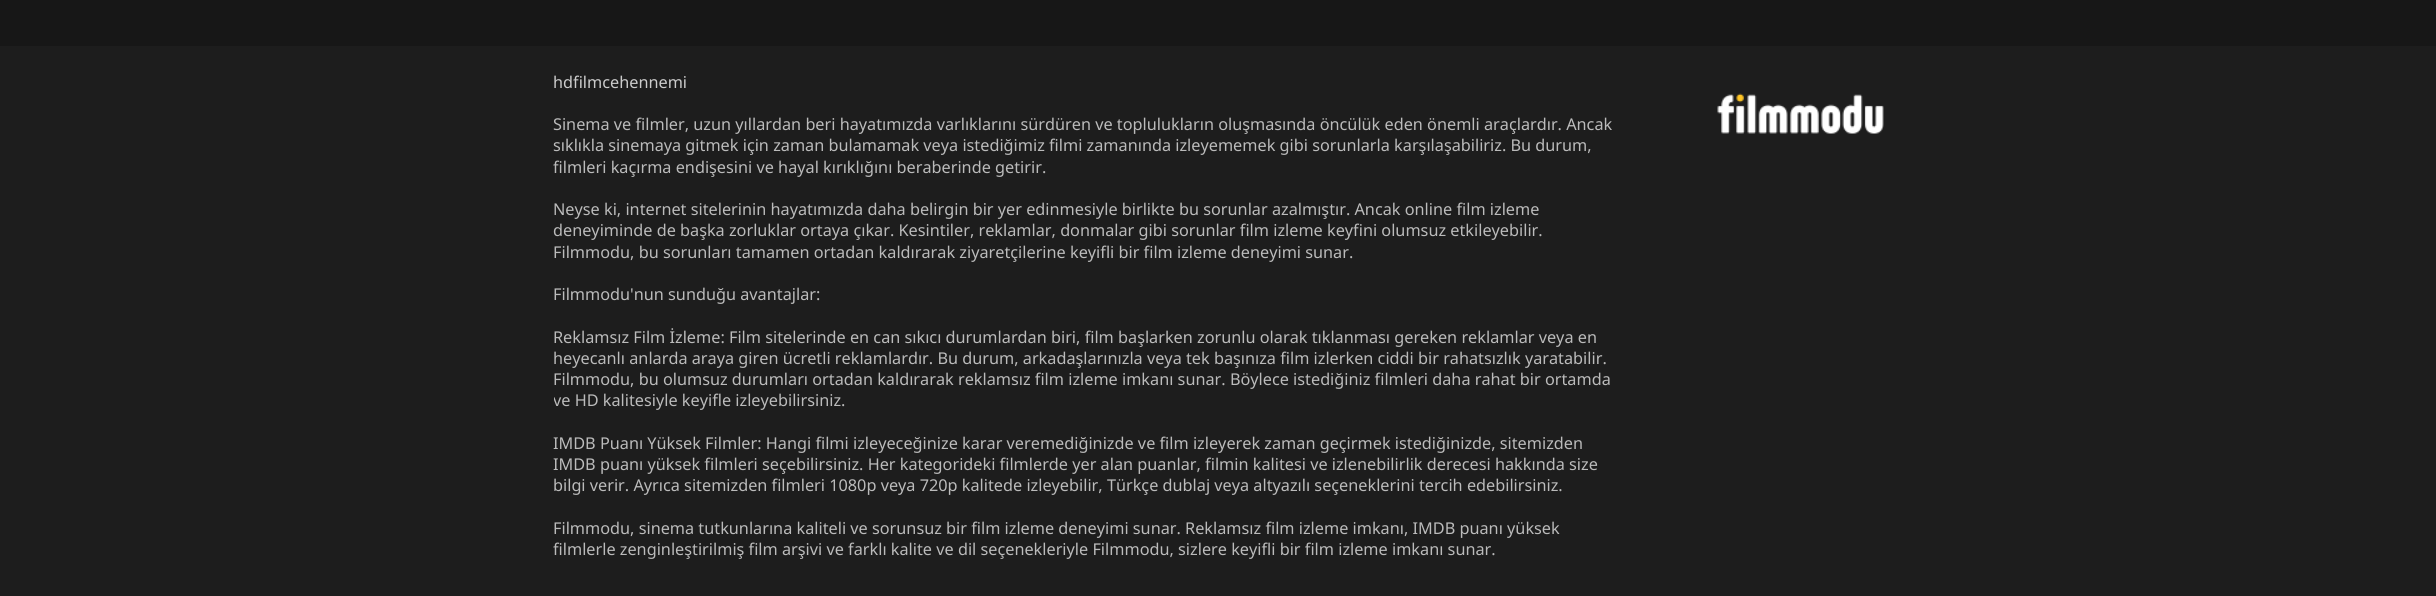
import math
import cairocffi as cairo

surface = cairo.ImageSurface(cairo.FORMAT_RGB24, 2436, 596)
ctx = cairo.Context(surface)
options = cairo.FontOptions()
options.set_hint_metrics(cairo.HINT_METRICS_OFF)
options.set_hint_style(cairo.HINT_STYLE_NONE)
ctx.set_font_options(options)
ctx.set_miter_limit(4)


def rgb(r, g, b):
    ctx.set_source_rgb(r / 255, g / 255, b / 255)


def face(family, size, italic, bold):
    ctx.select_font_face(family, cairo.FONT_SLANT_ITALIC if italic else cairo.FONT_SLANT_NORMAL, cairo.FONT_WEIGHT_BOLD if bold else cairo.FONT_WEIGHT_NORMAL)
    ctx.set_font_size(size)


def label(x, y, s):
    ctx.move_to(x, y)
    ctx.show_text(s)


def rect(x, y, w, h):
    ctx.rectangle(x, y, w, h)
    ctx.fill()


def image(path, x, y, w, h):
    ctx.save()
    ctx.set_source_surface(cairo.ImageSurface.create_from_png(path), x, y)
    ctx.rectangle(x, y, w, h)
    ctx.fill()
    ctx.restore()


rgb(23, 23, 23)
ctx.paint()
rgb(29, 29, 29)
rect(0, 46, 2436, 550)
face('Noto Sans', 16.25, 0, 0)
rgb(204, 204, 204)
label(553, 88, 'hdfilmcehennemi')
rgb(187, 187, 187)
label(553, 130, 'Sinema ve filmler, uzun yıllardan beri hayatımızda varlıklarını sürdüren ve toplulukların oluşmasında öncülük eden önemli araçlardır. Ancak')
label(553, 151, 'sıklıkla sinemaya gitmek için zaman bulamamak veya istediğimiz filmi zamanında izleyememek gibi sorunlarla karşılaşabiliriz. Bu durum,')
label(553, 173, 'filmleri kaçırma endişesini ve hayal kırıklığını beraberinde getirir.')
label(553, 215, 'Neyse ki, internet sitelerinin hayatımızda daha belirgin bir yer edinmesiyle birlikte bu sorunlar azalmıştır. Ancak online film izleme')
label(553, 236, 'deneyiminde de başka zorluklar ortaya çıkar. Kesintiler, reklamlar, donmalar gibi sorunlar film izleme keyfini olumsuz etkileyebilir.')
label(553, 258, 'Filmmodu, bu sorunları tamamen ortadan kaldırarak ziyaretçilerine keyifli bir film izleme deneyimi sunar.')
label(553, 300, 'Filmmodu\'nun sunduğu avantajlar:')
label(553, 343, 'Reklamsız Film İzleme: Film sitelerinde en can sıkıcı durumlardan biri, film başlarken zorunlu olarak tıklanması gereken reklamlar veya en')
label(553, 364, 'heyecanlı anlarda araya giren ücretli reklamlardır. Bu durum, arkadaşlarınızla veya tek başınıza film izlerken ciddi bir rahatsızlık yaratabilir.')
label(553, 385, 'Filmmodu, bu olumsuz durumları ortadan kaldırarak reklamsız film izleme imkanı sunar. Böylece istediğiniz filmleri daha rahat bir ortamda')
ctx.save()
ctx.rectangle(554, 59, 1330, 526)
ctx.clip()
label(553, 406, 've HD kalitesiyle keyifle izleyebilirsiniz.')
ctx.restore()
label(553, 449, 'IMDB Puanı Yüksek Filmler: Hangi filmi izleyeceğinize karar veremediğinizde ve film izleyerek zaman geçirmek istediğinizde, sitemizden')
label(553, 470, 'IMDB puanı yüksek filmleri seçebilirsiniz. Her kategorideki filmlerde yer alan puanlar, filmin kalitesi ve izlenebilirlik derecesi hakkında size')
label(553, 491, 'bilgi verir. Ayrıca sitemizden filmleri 1080p veya 720p kalitede izleyebilir, Türkçe dublaj veya altyazılı seçeneklerini tercih edebilirsiniz.')
label(553, 534, 'Filmmodu, sinema tutkunlarına kaliteli ve sorunsuz bir film izleme deneyimi sunar. Reklamsız film izleme imkanı, IMDB puanı yüksek')
label(553, 555, 'filmlerle zenginleştirilmiş film arşivi ve farklı kalite ve dil seçenekleriyle Filmmodu, sizlere keyifli bir film izleme imkanı sunar.')
image('image0.png', 1717, 93, 167, 41)
surface.write_to_png('render.png')
